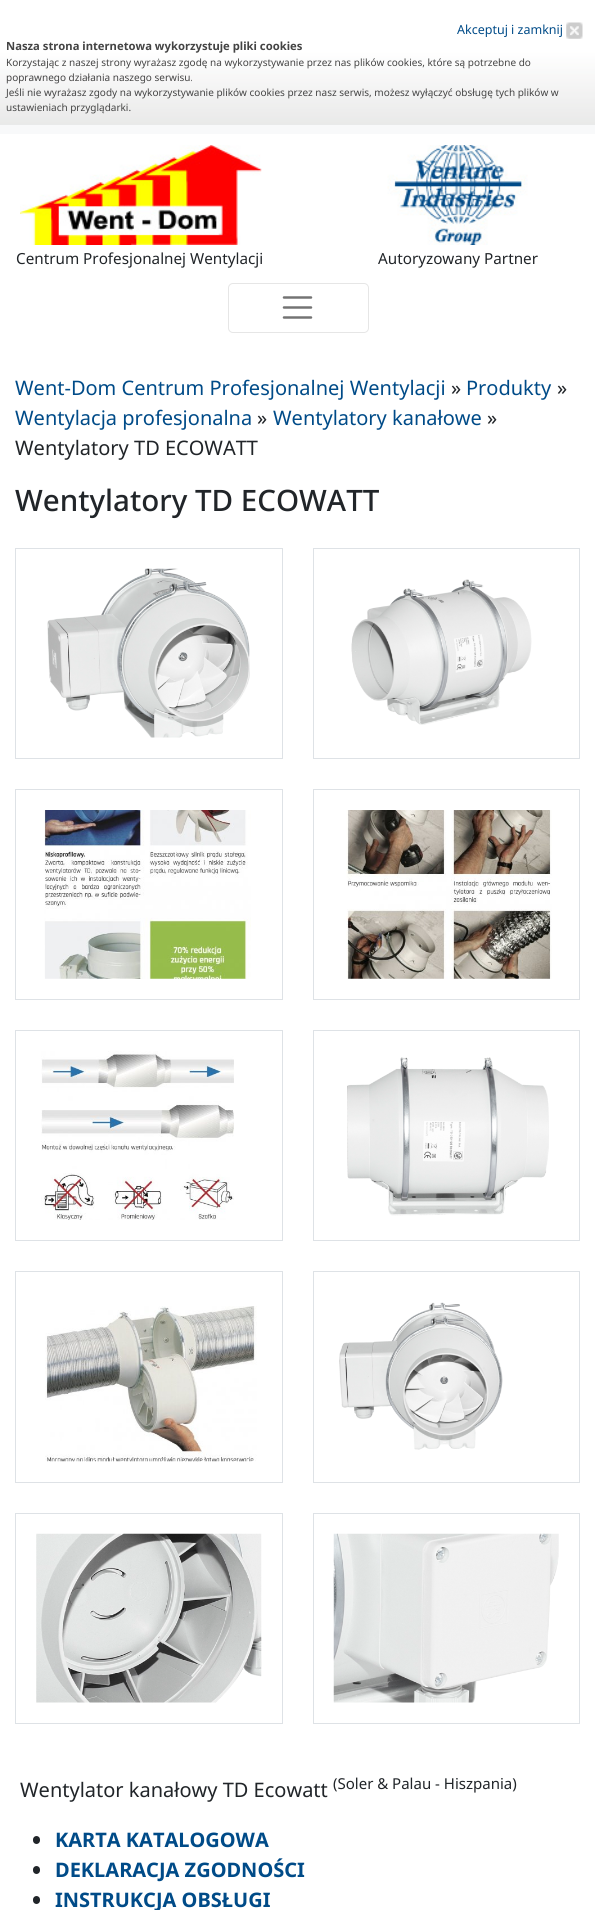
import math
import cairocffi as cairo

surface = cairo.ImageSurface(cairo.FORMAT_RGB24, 595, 1910)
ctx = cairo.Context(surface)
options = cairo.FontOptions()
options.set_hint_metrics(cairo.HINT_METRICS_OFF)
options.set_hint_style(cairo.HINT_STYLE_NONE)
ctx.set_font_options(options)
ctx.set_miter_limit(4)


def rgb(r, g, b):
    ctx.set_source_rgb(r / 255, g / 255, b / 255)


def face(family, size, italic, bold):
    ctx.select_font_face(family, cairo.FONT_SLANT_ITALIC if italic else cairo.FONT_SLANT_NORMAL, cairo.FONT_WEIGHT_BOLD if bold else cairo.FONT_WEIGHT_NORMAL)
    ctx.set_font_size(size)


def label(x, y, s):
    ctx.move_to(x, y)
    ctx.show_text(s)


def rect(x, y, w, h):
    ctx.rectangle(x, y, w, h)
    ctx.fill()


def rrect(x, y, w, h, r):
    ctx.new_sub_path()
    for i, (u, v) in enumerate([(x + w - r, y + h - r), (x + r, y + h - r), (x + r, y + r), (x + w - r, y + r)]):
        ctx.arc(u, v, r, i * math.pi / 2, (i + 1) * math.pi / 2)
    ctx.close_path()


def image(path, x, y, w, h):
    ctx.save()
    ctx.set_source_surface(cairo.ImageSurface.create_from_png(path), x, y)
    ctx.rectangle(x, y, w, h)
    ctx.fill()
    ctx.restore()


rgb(248, 249, 250)
ctx.paint()
image('image0.png', 0, 0, 595, 125)
face('Noto Sans', 12.5, 0, 0)
rgb(0, 75, 136)
label(457, 34, 'Akceptuj i zamknij')
image('image1.png', 566, 22, 17, 17)
face('Noto Sans', 11.25, 0, 1)
rgb(68, 68, 68)
label(6, 50, 'Nasza strona internetowa wykorzystuje pliki cookies')
face('Noto Sans', 10, 0, 0)
label(6, 66, 'Korzystając z naszej strony wyrażasz zgodę na wykorzystywanie przez nas plików cookies, które są potrzebne do')
label(6, 81, 'poprawnego działania naszego serwisu.')
label(6, 96, 'Jeśli nie wyrażasz zgody na wykorzystywanie plików cookies przez nasz serwis, możesz wyłączyć obsługę tych plików w')
label(6, 111, 'ustawieniach przyglądarki.')
rgb(255, 255, 255)
rect(0, 134, 595, 1776)
image('image2.png', 20, 145, 242, 100)
face('Noto Sans', 15.25, 0, 0)
rgb(33, 37, 41)
label(16, 264, 'Centrum Profesjonalnej Wentylacji')
image('image3.png', 387, 145, 141, 100)
label(378, 264, 'Autoryzowany Partner')
rrect(228.5, 283.5, 140, 49, 4.5)
rgb(230, 230, 230)
ctx.set_line_width(1)
ctx.stroke()
ctx.new_path()
ctx.move_to(284, 297.5)
ctx.line_to(311, 297.5)
ctx.move_to(284, 307.5)
ctx.line_to(311, 307.5)
ctx.move_to(284, 317.5)
ctx.line_to(311, 317.5)
rgb(115, 115, 115)
ctx.set_line_width(2.5)
ctx.set_line_cap(cairo.LINE_CAP_ROUND)
ctx.stroke()
face('Noto Sans', 20, 0, 0)
rgb(0, 75, 136)
label(15, 395, 'Went-Dom Centrum Profesjonalnej Wentylacji')
rgb(33, 37, 41)
label(451, 395, '»')
rgb(0, 75, 136)
label(466, 395, 'Produkty')
rgb(33, 37, 41)
label(557, 395, '»')
rgb(0, 75, 136)
label(15, 425, 'Wentylacja profesjonalna')
rgb(33, 37, 41)
label(257, 425, '»')
rgb(0, 75, 136)
label(273, 425, 'Wentylatory kanałowe')
rgb(33, 37, 41)
label(487, 425, '»')
label(15, 455, 'Wentylatory TD ECOWATT')
face('Noto Sans Medium', 29.5, 0, 0)
label(15, 511, 'Wentylatory TD ECOWATT')
ctx.rectangle(15.5, 548.5, 267, 210)
rgb(222, 226, 230)
ctx.set_line_width(1)
ctx.set_line_cap(cairo.LINE_CAP_BUTT)
ctx.stroke()
image('image4.png', 47, 568, 203, 170)
ctx.rectangle(313.5, 548.5, 266, 210)
ctx.stroke()
image('image5.png', 351, 579, 181, 146)
ctx.rectangle(15.5, 789.5, 267, 210)
ctx.stroke()
image('image6.png', 44, 810, 207, 169)
ctx.rectangle(313.5, 789.5, 266, 210)
ctx.stroke()
image('image7.png', 346, 810, 206, 169)
ctx.rectangle(15.5, 1030.5, 267, 210)
ctx.stroke()
image('image8.png', 41, 1051, 193, 169)
ctx.rectangle(313.5, 1030.5, 266, 210)
ctx.stroke()
image('image9.png', 347, 1057, 202, 159)
ctx.rectangle(15.5, 1271.5, 267, 211)
ctx.stroke()
image('image10.png', 45, 1306, 212, 156)
ctx.rectangle(313.5, 1271.5, 266, 211)
ctx.stroke()
image('image11.png', 339, 1302, 164, 148)
ctx.rectangle(15.5, 1513.5, 267, 210)
ctx.stroke()
image('image12.png', 36, 1533, 226, 170)
ctx.rectangle(313.5, 1513.5, 266, 210)
ctx.stroke()
image('image13.png', 333, 1533, 226, 170)
face('Noto Sans', 20, 0, 0)
rgb(33, 37, 41)
label(20, 1797, 'Wentylator kanałowy TD Ecowatt')
face('Noto Sans', 15, 0, 0)
label(333, 1789, '(Soler & Palau - Hiszpania)')
rrect(33, 1836, 7, 8, 3.5)
ctx.fill()
face('Noto Sans', 20, 0, 1)
rgb(0, 75, 136)
label(55, 1847, 'KARTA KATALOGOWA')
rgb(33, 37, 41)
rrect(33, 1866, 7, 8, 3.5)
ctx.fill()
rgb(0, 75, 136)
label(55, 1877, 'DEKLARACJA ZGODNOŚCI')
rgb(33, 37, 41)
rrect(33, 1896, 7, 8, 3.5)
ctx.fill()
rgb(0, 75, 136)
label(55, 1907, 'INSTRUKCJA OBSŁUGI')
surface.write_to_png('render.png')
